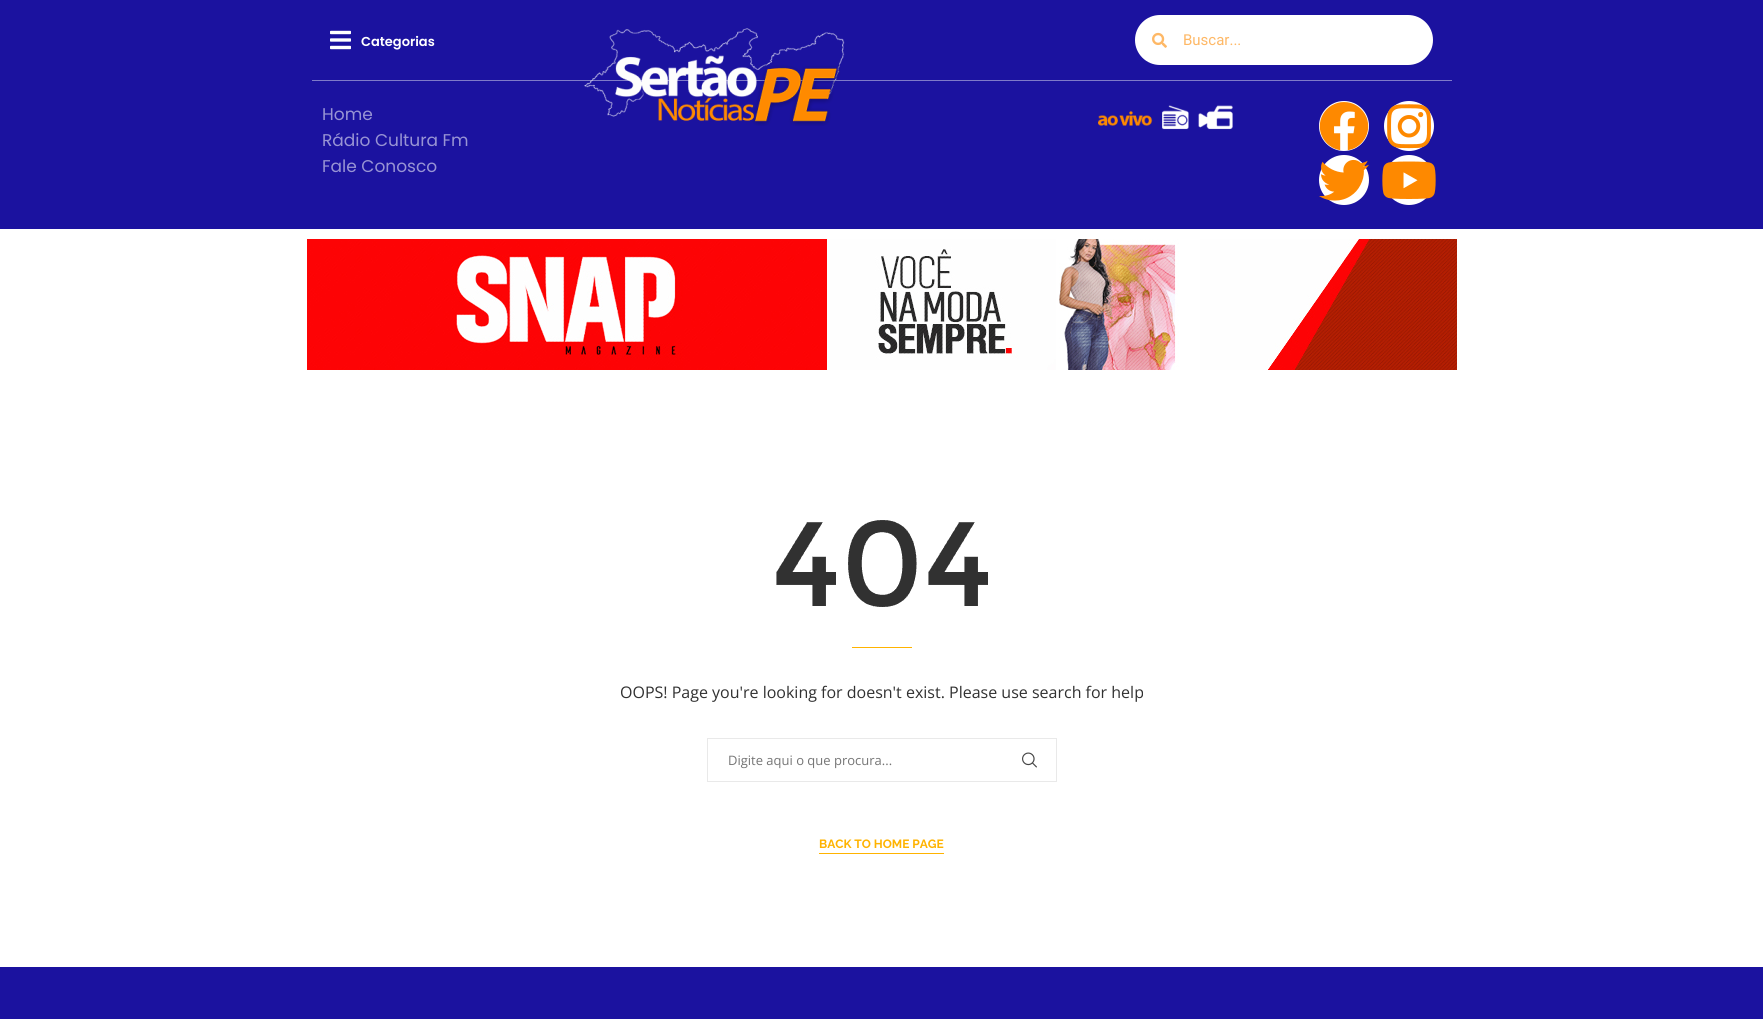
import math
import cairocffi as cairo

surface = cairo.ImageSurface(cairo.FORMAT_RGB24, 1763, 1019)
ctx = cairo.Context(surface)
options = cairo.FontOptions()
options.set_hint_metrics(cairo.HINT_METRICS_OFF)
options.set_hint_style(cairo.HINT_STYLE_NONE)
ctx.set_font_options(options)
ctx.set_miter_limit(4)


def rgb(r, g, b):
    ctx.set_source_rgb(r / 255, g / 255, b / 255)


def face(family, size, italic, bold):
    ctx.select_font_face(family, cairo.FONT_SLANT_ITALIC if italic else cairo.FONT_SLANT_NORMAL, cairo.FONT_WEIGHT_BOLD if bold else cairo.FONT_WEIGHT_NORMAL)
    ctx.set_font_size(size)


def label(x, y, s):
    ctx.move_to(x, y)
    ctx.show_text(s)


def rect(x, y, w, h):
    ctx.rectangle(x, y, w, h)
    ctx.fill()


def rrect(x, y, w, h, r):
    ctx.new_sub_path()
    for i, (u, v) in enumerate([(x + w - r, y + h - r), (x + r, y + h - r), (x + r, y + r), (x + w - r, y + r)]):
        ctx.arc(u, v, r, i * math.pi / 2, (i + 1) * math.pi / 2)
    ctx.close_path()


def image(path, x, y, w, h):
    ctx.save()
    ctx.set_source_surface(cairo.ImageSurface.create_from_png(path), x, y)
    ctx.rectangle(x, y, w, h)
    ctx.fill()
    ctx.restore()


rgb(255, 255, 255)
ctx.paint()
rgb(27, 18, 159)
rect(0, 0, 1763, 229)
image('image0.png', 330, 30, 21, 20)
face('Poppins SemiBold', 13, 0, 0)
rgb(255, 255, 255)
label(361, 46, 'Categorias')
rgb(127, 122, 201)
rect(312, 80, 1140, 1)
image('image1.png', 584, 28, 261, 98)
rgb(255, 255, 255)
rrect(1135, 15, 298, 50, 25)
ctx.fill()
image('image2.png', 1152, 32, 15, 16)
face('Roboto', 15, 0, 0)
rgb(254, 184, 102)
label(1183, 45, 'Buscar...')
face('Poppins', 17, 0, 0)
rgb(152, 148, 212)
label(322, 120, 'Home')
label(322, 146, 'Rádio Cultura Fm')
label(322, 172, 'Fale Conosco')
image('image3.png', 1098, 105, 135, 25)
rgb(255, 255, 255)
ctx.arc(1344, 126, 25, 0, 2 * math.pi)
ctx.fill()
image('image4.png', 1319, 102, 50, 49)
ctx.arc(1409, 126, 25, 0, 2 * math.pi)
ctx.fill()
image('image5.png', 1387, 104, 44, 45)
ctx.arc(1344, 180, 25, 0, 2 * math.pi)
ctx.fill()
image('image6.png', 1319, 159, 50, 42)
ctx.arc(1409, 180, 25, 0, 2 * math.pi)
ctx.fill()
image('image7.png', 1382, 161, 54, 38)
image('image8.png', 307, 239, 1150, 131)
image('image9.png', 776, 520, 212, 87)
rgb(255, 179, 0)
rect(852, 647, 60, 1)
face('Open Sans', 16, 0, 0)
rgb(49, 49, 49)
label(620, 698, 'OOPS! Page you\'re looking for doesn\'t exist. Please use search for help')
ctx.rectangle(707.5, 738.5, 349, 43)
rgb(233, 233, 233)
ctx.set_line_width(1)
ctx.stroke()
face('Open Sans', 13, 0, 0)
rgb(117, 117, 117)
label(728, 765, 'Digite aqui o que procura...')
image('image10.png', 1022, 752, 15, 16)
face('Raleway', 12, 0, 1)
rgb(255, 179, 0)
label(819, 848, 'BACK TO HOME PAGE')
rect(819, 853, 125, 1)
rgb(27, 18, 159)
rect(0, 967, 1763, 52)
surface.write_to_png('render.png')
